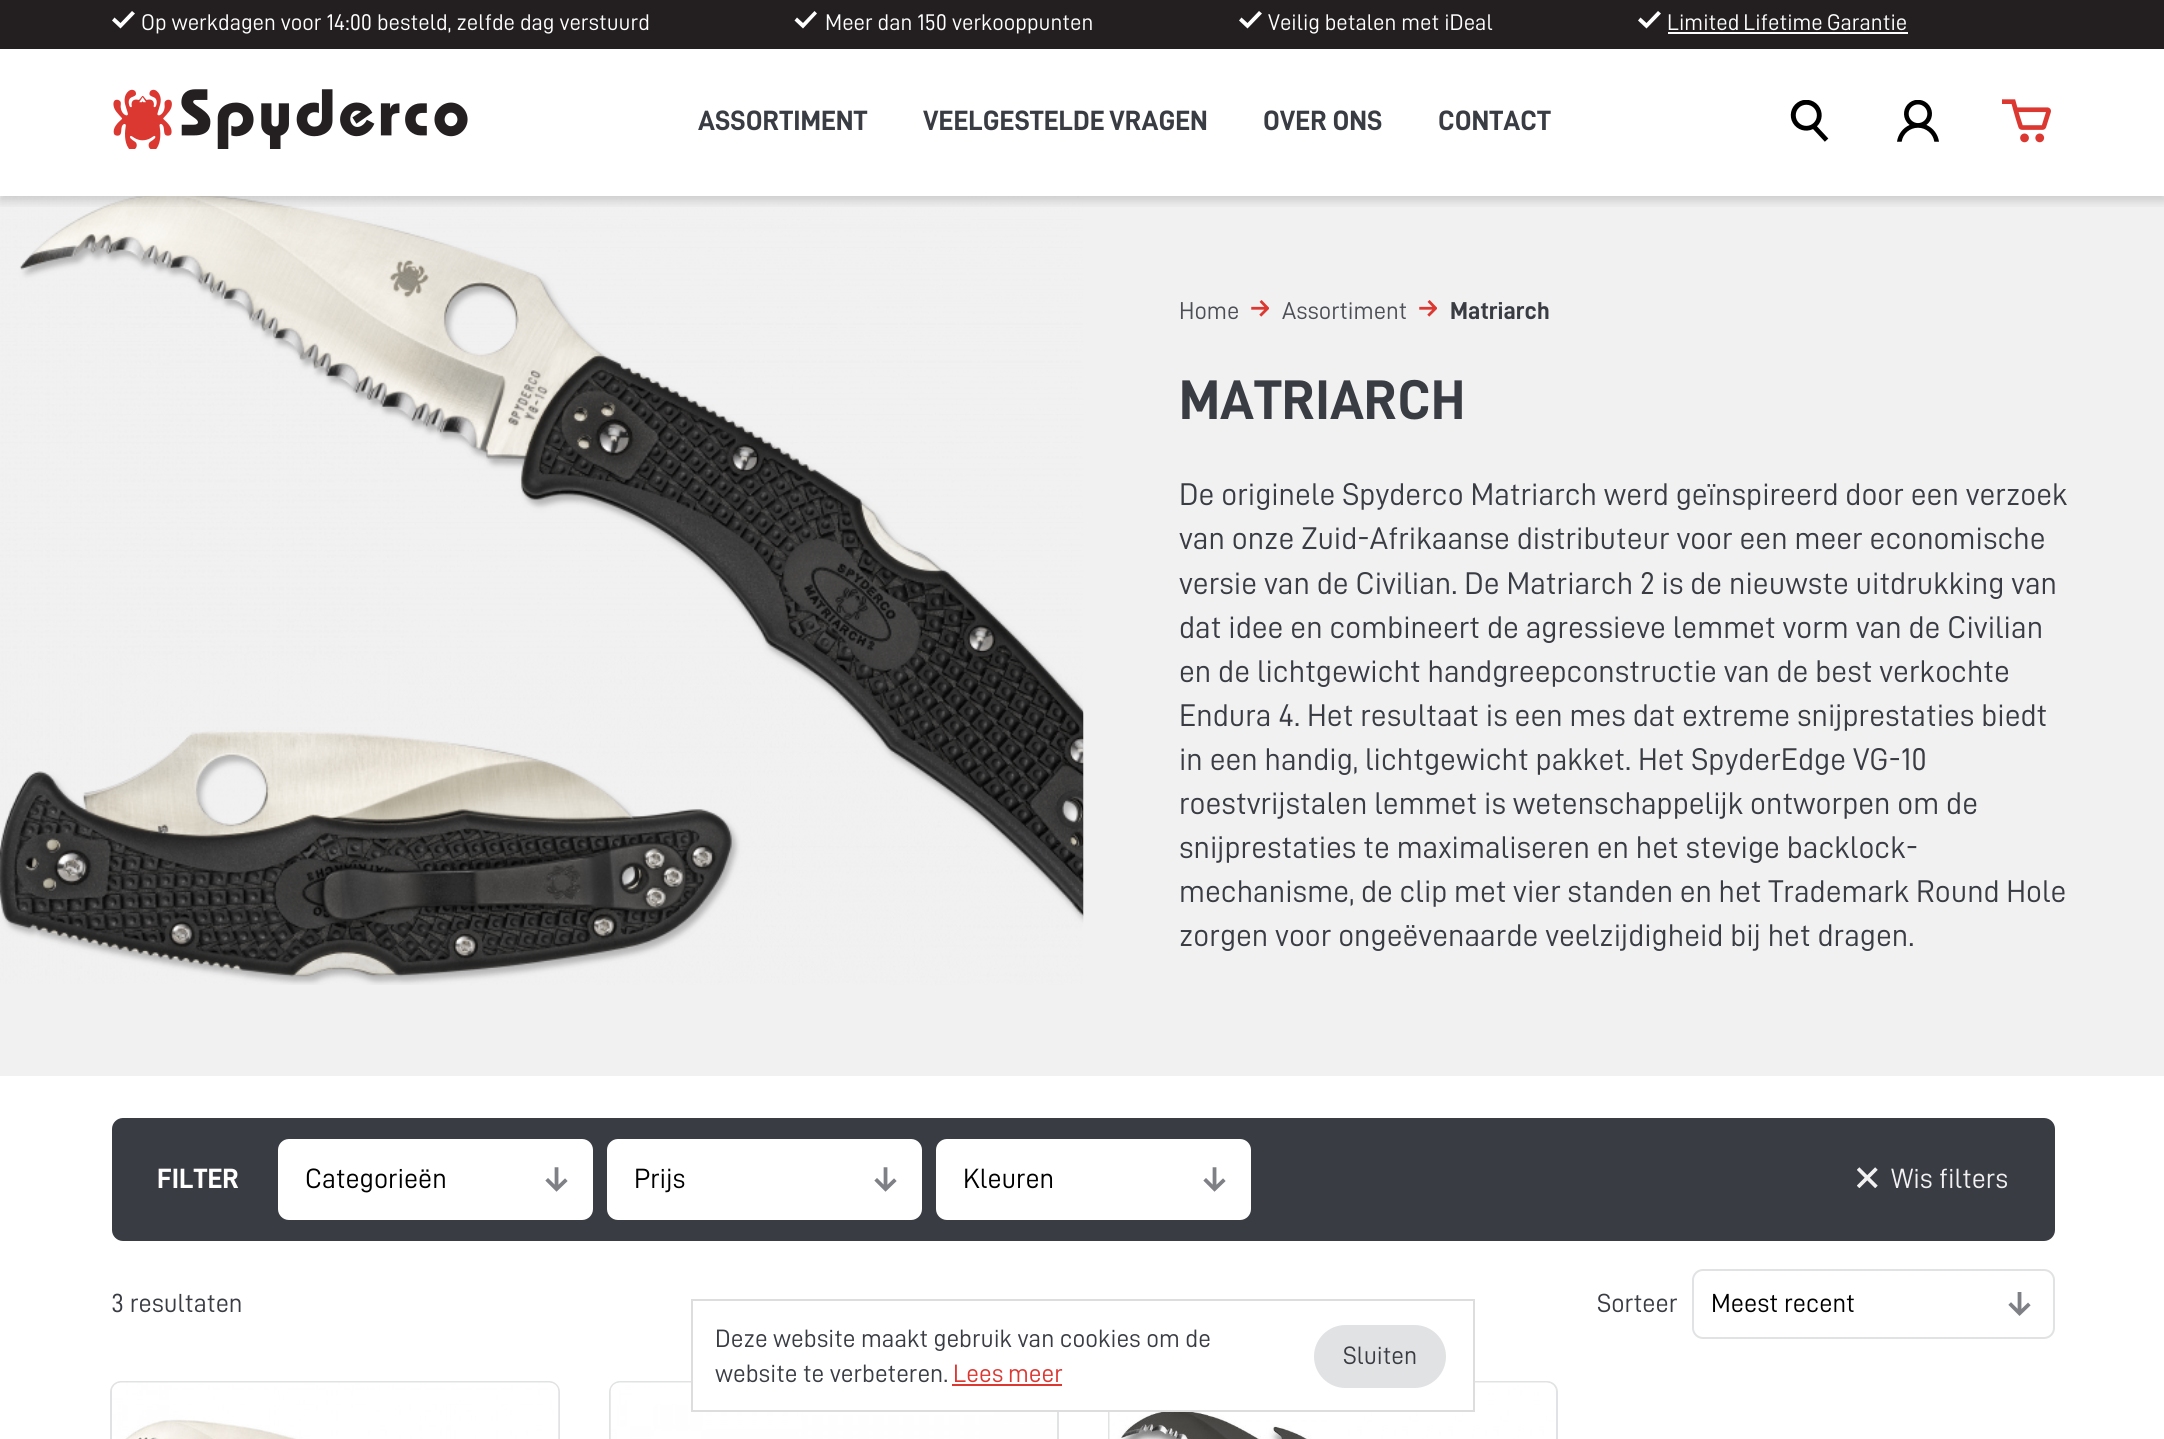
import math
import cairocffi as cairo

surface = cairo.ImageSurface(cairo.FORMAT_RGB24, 2164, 1439)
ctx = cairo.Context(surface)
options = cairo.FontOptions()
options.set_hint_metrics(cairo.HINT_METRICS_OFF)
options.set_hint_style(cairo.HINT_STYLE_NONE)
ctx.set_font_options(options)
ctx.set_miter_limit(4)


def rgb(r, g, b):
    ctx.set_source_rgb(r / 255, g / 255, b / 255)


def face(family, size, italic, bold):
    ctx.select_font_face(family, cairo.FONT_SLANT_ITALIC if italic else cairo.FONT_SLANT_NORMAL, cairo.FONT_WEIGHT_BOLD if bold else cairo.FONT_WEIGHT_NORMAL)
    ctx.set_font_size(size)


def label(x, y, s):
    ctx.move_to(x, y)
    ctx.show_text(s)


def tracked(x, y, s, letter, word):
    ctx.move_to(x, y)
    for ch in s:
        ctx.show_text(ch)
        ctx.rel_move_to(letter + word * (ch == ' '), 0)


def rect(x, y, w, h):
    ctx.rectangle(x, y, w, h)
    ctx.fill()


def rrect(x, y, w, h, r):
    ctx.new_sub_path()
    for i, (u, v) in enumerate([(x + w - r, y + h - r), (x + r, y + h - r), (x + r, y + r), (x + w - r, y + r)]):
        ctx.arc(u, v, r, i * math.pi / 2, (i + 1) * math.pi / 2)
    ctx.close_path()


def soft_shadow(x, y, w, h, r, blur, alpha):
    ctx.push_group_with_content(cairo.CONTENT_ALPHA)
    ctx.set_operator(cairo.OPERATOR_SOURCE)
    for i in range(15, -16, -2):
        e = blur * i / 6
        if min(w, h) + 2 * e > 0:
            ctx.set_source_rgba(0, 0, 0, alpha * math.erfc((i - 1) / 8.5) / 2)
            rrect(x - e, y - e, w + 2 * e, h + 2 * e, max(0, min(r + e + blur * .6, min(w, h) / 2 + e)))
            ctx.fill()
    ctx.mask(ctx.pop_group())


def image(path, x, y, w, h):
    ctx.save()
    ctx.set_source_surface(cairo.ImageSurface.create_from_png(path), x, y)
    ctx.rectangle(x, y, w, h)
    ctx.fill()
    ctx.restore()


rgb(255, 255, 255)
ctx.paint()
rgb(241, 241, 242)
rect(0, 196, 2164, 880)
image('image4.png', 0, 196, 1084, 789)
ctx.save()
ctx.rectangle(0, 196, 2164, 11)
ctx.clip()
rgb(0, 0, 0)
soft_shadow(0, 5, 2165, 196, 0, 5, 0.16)
ctx.restore()
rgb(35, 31, 32)
rect(0, 0, 2164, 49)
rgb(255, 255, 255)
ctx.new_path()
ctx.move_to(120.5, 28.5)
ctx.line_to(112, 20.5)
ctx.line_to(114.5, 17.5)
ctx.line_to(120.5, 23)
ctx.line_to(132, 11)
ctx.line_to(135, 13.5)
ctx.close_path()
ctx.fill()
face('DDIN', 22.75, 0, 0)
label(141, 30, 'Op werkdagen voor 14:00 besteld, zelfde dag verstuurd')
ctx.new_path()
ctx.move_to(803, 28.5)
ctx.line_to(794.5, 20.5)
ctx.line_to(797, 17.5)
ctx.line_to(803, 23)
ctx.line_to(814.5, 11)
ctx.line_to(817, 13.5)
ctx.close_path()
ctx.fill()
label(825, 30, 'Meer dan 150 verkooppunten')
ctx.new_path()
ctx.move_to(1247.5, 28.5)
ctx.line_to(1239, 20.5)
ctx.line_to(1241.5, 17.5)
ctx.line_to(1247.5, 23)
ctx.line_to(1259, 11)
ctx.line_to(1262, 13.5)
ctx.close_path()
ctx.fill()
label(1268, 30, 'Veilig betalen met iDeal')
ctx.new_path()
ctx.move_to(1646.5, 28.5)
ctx.line_to(1638, 20.5)
ctx.line_to(1640.5, 17.5)
ctx.line_to(1646.5, 23)
ctx.line_to(1658, 11)
ctx.line_to(1661, 13.5)
ctx.close_path()
ctx.fill()
tracked(1667, 30, 'Limited Lifetime Garantie', 0, -1)
rect(1668, 32, 240, 2)
image('image0.png', 113, 89, 355, 60)
face('DDIN', 28, 0, 1)
rgb(57, 60, 67)
label(698, 130, 'ASSORTIMENT')
tracked(923, 130, 'VEELGESTELDE VRAGEN', 0, -2)
tracked(1263, 130, 'OVER ONS', 0, -1)
label(1438, 130, 'CONTACT')
image('image1.png', 1790, 100, 39, 42)
image('image2.png', 1897, 100, 42, 42)
image('image3.png', 2002, 99, 49, 44)
face('DDIN', 24.5, 0, 0)
rgb(76, 79, 85)
label(1179, 319, 'Home')
image('image5.png', 1251, 300, 18, 17)
label(1282, 319, 'Assortiment')
image('image5.png', 1419, 300, 18, 17)
face('DDIN', 24.5, 0, 1)
rgb(57, 60, 67)
label(1450, 319, 'Matriarch')
face('DDIN', 56, 0, 1)
label(1179, 419, 'MATRIARCH')
face('DDIN', 31.5, 0, 0)
label(1179, 505, 'De originele Spyderco Matriarch werd geïnspireerd door een verzoek')
label(1179, 549, 'van onze Zuid-Afrikaanse distributeur voor een meer economische')
label(1179, 594, 'versie van de Civilian. De Matriarch 2 is de nieuwste uitdrukking van')
label(1179, 638, 'dat idee en combineert de agressieve lemmet vorm van de Civilian')
label(1179, 682, 'en de lichtgewicht handgreepconstructie van de best verkochte')
label(1179, 726, 'Endura 4. Het resultaat is een mes dat extreme snijprestaties biedt')
label(1179, 770, 'in een handig, lichtgewicht pakket. Het SpyderEdge VG-10')
label(1179, 814, 'roestvrijstalen lemmet is wetenschappelijk ontworpen om de')
label(1179, 858, 'snijprestaties te maximaliseren en het stevige backlock-')
tracked(1179, 902, 'mechanisme, de clip met vier standen en het Trademark Round Hole', 0, -0.25)
label(1179, 946, 'zorgen voor ongeëvenaarde veelzijdigheid bij het dragen.')
rrect(112, 1118, 1943, 123, 11)
ctx.fill()
face('DDIN', 28, 0, 1)
rgb(255, 255, 255)
label(157, 1188, 'FILTER')
rrect(278, 1139, 315, 81, 11)
ctx.fill()
face('DDIN', 28, 0, 0)
rgb(0, 0, 0)
label(305, 1188, 'Categorieën')
image('image6.png', 545, 1167, 23, 25)
rgb(255, 255, 255)
rrect(607, 1139, 315, 81, 11)
ctx.fill()
rgb(0, 0, 0)
label(634, 1188, 'Prijs')
image('image6.png', 874, 1167, 23, 25)
rgb(255, 255, 255)
rrect(936, 1139, 315, 81, 11)
ctx.fill()
rgb(0, 0, 0)
label(963, 1188, 'Kleuren')
image('image6.png', 1203, 1167, 23, 25)
image('image7.png', 1857, 1167, 21, 21)
rgb(241, 241, 242)
label(1891, 1188, 'Wis filters')
face('DDIN', 26.25, 0, 0)
rgb(57, 60, 67)
label(111, 1312, '3 resultaten')
label(1597, 1312, 'Sorteer')
rrect(1693, 1270, 361, 68, 10)
rgb(225, 226, 227)
ctx.stroke()
rgb(0, 0, 0)
label(1711, 1312, 'Meest recent')
image('image8.png', 2008, 1292, 23, 24)
rrect(111, 1382, 448, 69, 10)
rgb(225, 226, 227)
ctx.stroke()
image('image9.png', 112, 1382, 447, 57)
rrect(610, 1382, 448, 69, 10)
ctx.stroke()
image('image10.png', 610, 1382, 447, 57)
rrect(1109, 1382, 448, 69, 10)
ctx.stroke()
image('image11.png', 1109, 1382, 447, 57)
rgb(255, 255, 255)
rect(693, 1381, 780, 29)
ctx.rectangle(692, 1300, 782, 111)
rgb(221, 221, 221)
ctx.stroke()
face('DDIN', 25.25, 0, 0)
rgb(57, 60, 67)
label(715, 1347, 'Deze website maakt gebruik van cookies om de')
label(715, 1382, 'website te verbeteren.')
rgb(219, 56, 50)
tracked(953, 1382, 'Lees meer', 0, -1)
rect(952, 1384, 110, 2)
rgb(225, 226, 227)
rrect(1314, 1325, 132, 63, 31.5)
ctx.fill()
rgb(57, 60, 67)
label(1343, 1364, 'Sluiten')
surface.write_to_png('render.png')
